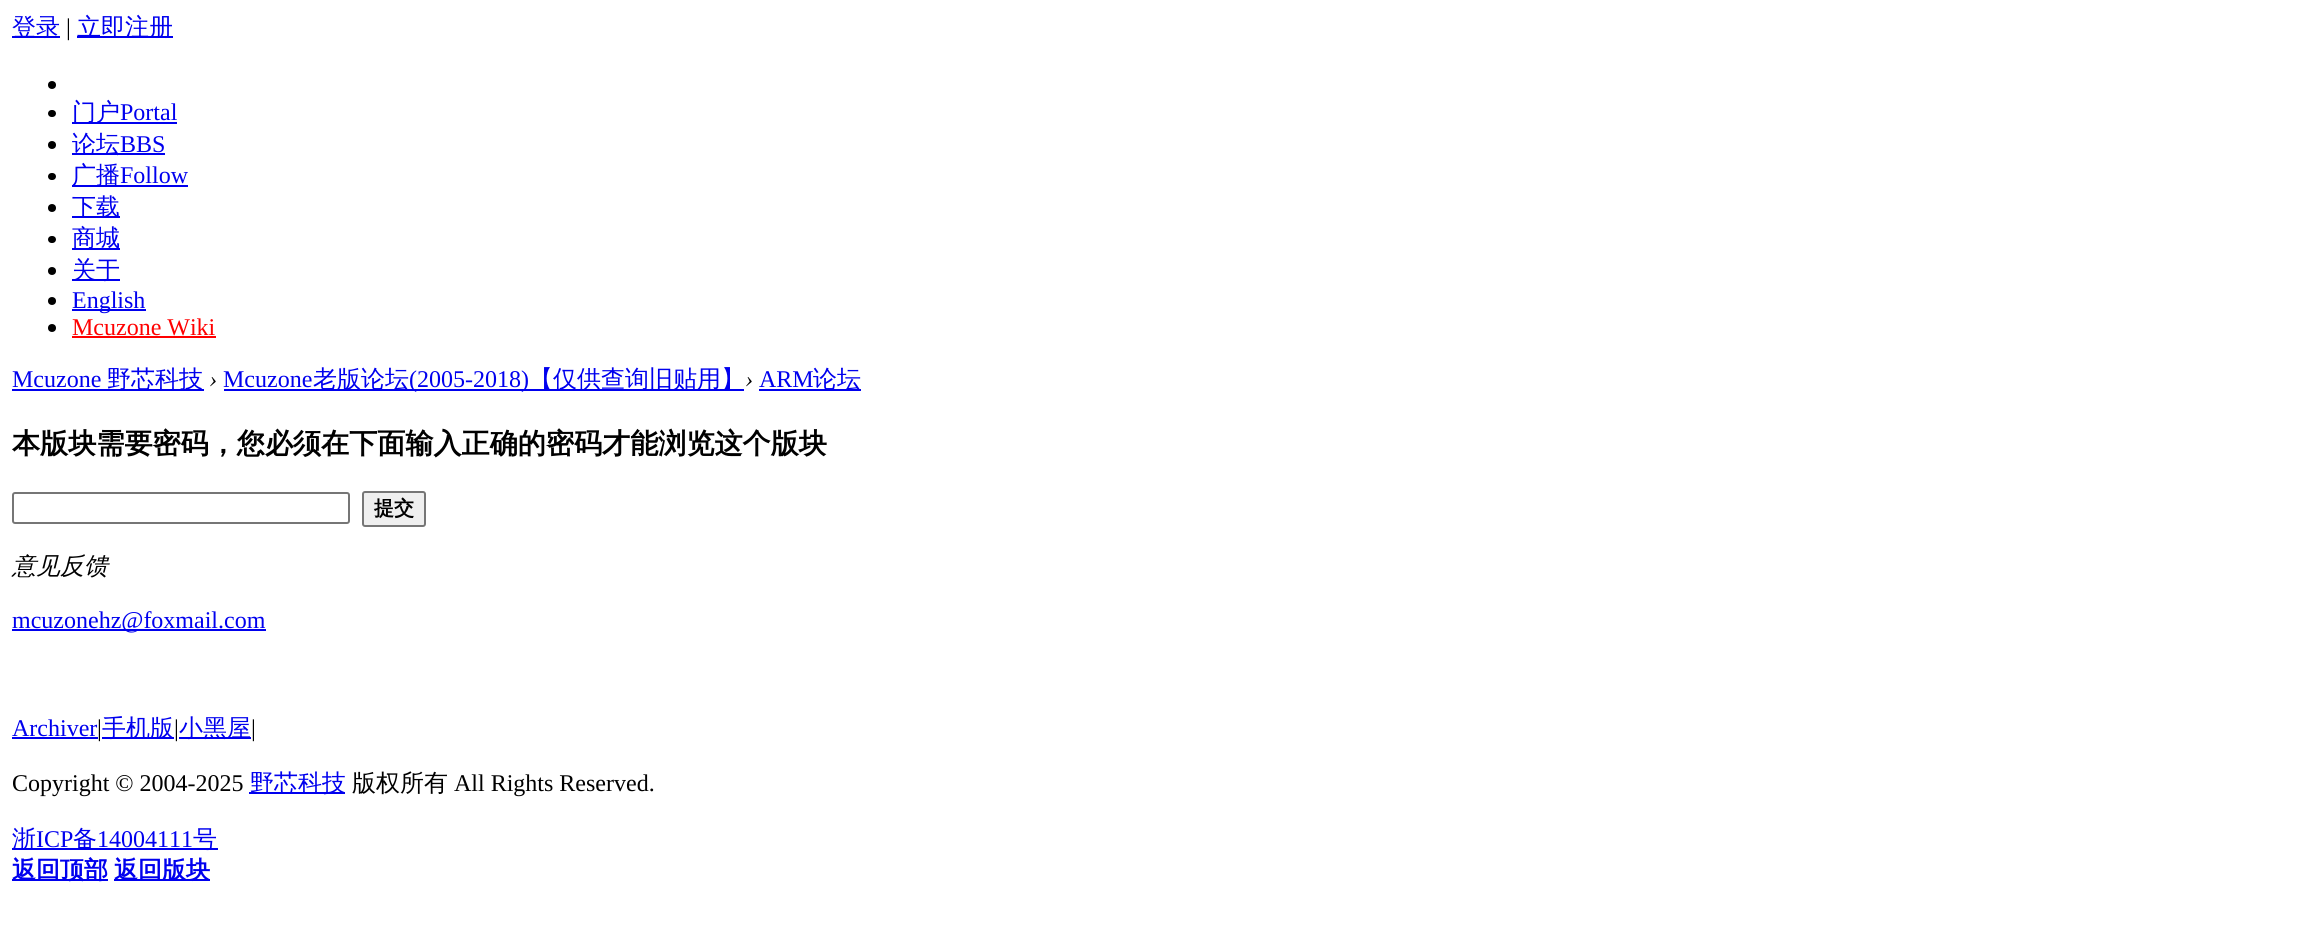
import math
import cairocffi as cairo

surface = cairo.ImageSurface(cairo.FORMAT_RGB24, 2298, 951)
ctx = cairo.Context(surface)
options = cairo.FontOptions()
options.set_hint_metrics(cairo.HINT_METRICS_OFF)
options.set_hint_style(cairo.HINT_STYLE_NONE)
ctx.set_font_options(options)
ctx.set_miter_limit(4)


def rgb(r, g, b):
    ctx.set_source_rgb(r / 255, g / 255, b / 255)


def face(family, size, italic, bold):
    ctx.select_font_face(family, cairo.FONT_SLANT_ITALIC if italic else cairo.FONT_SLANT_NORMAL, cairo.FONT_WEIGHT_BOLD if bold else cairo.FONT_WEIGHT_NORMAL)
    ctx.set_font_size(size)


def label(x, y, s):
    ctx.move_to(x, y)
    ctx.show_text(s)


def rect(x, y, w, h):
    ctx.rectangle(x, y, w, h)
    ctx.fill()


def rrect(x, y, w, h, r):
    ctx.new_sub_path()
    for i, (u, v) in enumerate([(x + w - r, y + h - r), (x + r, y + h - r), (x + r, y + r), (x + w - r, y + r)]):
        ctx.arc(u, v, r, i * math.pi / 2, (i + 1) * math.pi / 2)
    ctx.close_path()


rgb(255, 255, 255)
ctx.paint()
rgb(0, 0, 238)
rect(12, 36, 48, 2)
face('WenQuanYi Zen Hei Medium', 24, 0, 0)
label(12, 35, '登录')
face('Liberation Serif', 24, 0, 0)
rgb(0, 0, 0)
label(66, 35, '|')
rgb(0, 0, 238)
rect(77, 36, 96, 2)
face('WenQuanYi Zen Hei Medium', 24, 0, 0)
label(77, 35, '立即注册')
rgb(0, 0, 0)
ctx.new_path()
ctx.arc(52, 85, 4, 0, 2 * math.pi)
ctx.fill()
rrect(48, 110, 8, 7, 3.5)
ctx.fill()
rgb(0, 0, 238)
rect(72, 122, 105, 2)
label(72, 120, '门户')
face('Liberation Serif', 24, 0, 0)
label(120, 120, 'Portal')
rgb(0, 0, 0)
ctx.new_path()
ctx.arc(52, 145, 4, 0, 2 * math.pi)
ctx.fill()
rgb(0, 0, 238)
rect(72, 153, 93, 2)
face('WenQuanYi Zen Hei Medium', 24, 0, 0)
label(72, 152, '论坛')
face('Liberation Serif', 24, 0, 0)
label(120, 152, 'BBS')
rgb(0, 0, 0)
rrect(48, 173, 8, 7, 3.5)
ctx.fill()
rgb(0, 0, 238)
rect(72, 185, 116, 2)
face('WenQuanYi Zen Hei Medium', 24, 0, 0)
label(72, 183, '广播')
face('Liberation Serif', 24, 0, 0)
label(120, 183, 'Follow')
rgb(0, 0, 0)
ctx.new_path()
ctx.arc(52, 208, 4, 0, 2 * math.pi)
ctx.fill()
rgb(0, 0, 238)
rect(72, 216, 48, 2)
face('WenQuanYi Zen Hei Medium', 24, 0, 0)
label(72, 215, '下载')
rgb(0, 0, 0)
rrect(48, 236, 8, 7, 3.5)
ctx.fill()
rgb(0, 0, 238)
rect(72, 248, 48, 2)
label(72, 246, '商城')
rgb(0, 0, 0)
ctx.new_path()
ctx.arc(52, 271, 4, 0, 2 * math.pi)
ctx.fill()
rgb(0, 0, 238)
rect(72, 279, 48, 2)
label(72, 278, '关于')
rgb(0, 0, 0)
ctx.new_path()
ctx.arc(52, 301, 4, 0, 2 * math.pi)
ctx.fill()
rgb(0, 0, 238)
rect(72, 309, 74, 2)
face('Liberation Serif', 24, 0, 0)
label(72, 308, 'English')
rgb(0, 0, 0)
ctx.new_path()
ctx.arc(52, 328, 4, 0, 2 * math.pi)
ctx.fill()
rgb(255, 0, 0)
label(72, 335, 'Mcuzone Wiki')
rect(72, 336, 144, 2)
rgb(0, 0, 238)
label(12, 387, 'Mcuzone')
rect(12, 389, 192, 2)
face('WenQuanYi Zen Hei Medium', 24, 0, 0)
label(107, 387, '野芯科技')
face('Liberation Serif', 24, 1, 0)
rgb(0, 0, 0)
label(209, 387, '›')
face('Liberation Serif', 24, 0, 0)
rgb(0, 0, 238)
label(223, 387, 'Mcuzone')
rect(224, 389, 520, 2)
face('WenQuanYi Zen Hei Medium', 24, 0, 0)
label(313, 387, '老版论坛')
face('Liberation Serif', 24, 0, 0)
label(409, 387, '(2005-2018)')
face('WenQuanYi Zen Hei Medium', 24, 0, 0)
label(529, 387, '【仅供查询旧贴用】')
face('Liberation Serif', 24, 1, 0)
rgb(0, 0, 0)
label(745, 387, '›')
face('Liberation Serif', 24, 0, 0)
rgb(0, 0, 238)
label(759, 387, 'ARM')
rect(759, 389, 102, 2)
face('WenQuanYi Zen Hei Medium', 24, 0, 0)
label(813, 387, '论坛')
face('WenQuanYi Zen Hei', 28.1, 0, 1)
rgb(0, 0, 0)
label(12, 453, '本版块需要密码，您必须在下面输入正确的密码才能浏览这个版块')
rrect(13, 493, 336, 30, 2)
rgb(118, 118, 118)
ctx.stroke()
rgb(239, 239, 239)
rrect(363, 492, 62, 34, 2)
ctx.fill_preserve()
rgb(118, 118, 118)
ctx.stroke()
face('WenQuanYi Zen Hei', 20, 0, 1)
rgb(0, 0, 0)
label(374, 515, '提交')
face('WenQuanYi Zen Hei Medium', 24, 1, 0)
label(12, 574, '意见反馈')
rgb(0, 0, 238)
rect(12, 629, 254, 2)
face('Liberation Serif', 24, 0, 0)
label(12, 628, 'mcuzonehz@foxmail.com')
label(12, 736, 'Archiver')
rect(12, 737, 86, 2)
rgb(0, 0, 0)
label(97, 736, '|')
rgb(0, 0, 238)
rect(102, 737, 72, 2)
face('WenQuanYi Zen Hei Medium', 24, 0, 0)
label(102, 736, '手机版')
face('Liberation Serif', 24, 0, 0)
rgb(0, 0, 0)
label(174, 736, '|')
rgb(0, 0, 238)
rect(179, 737, 72, 2)
face('WenQuanYi Zen Hei Medium', 24, 0, 0)
label(179, 736, '小黑屋')
face('Liberation Serif', 24, 0, 0)
rgb(0, 0, 0)
label(251, 736, '|')
label(12, 791, 'Copyright © 2004-2025')
rgb(0, 0, 238)
rect(249, 792, 96, 2)
face('WenQuanYi Zen Hei Medium', 24, 0, 0)
label(250, 791, '野芯科技')
rgb(0, 0, 0)
label(352, 791, '版权所有')
face('Liberation Serif', 24, 0, 0)
label(454, 791, 'All Rights Reserved.')
rgb(0, 0, 238)
rect(12, 848, 206, 2)
face('WenQuanYi Zen Hei Medium', 24, 0, 0)
label(12, 847, '浙')
face('Liberation Serif', 24, 0, 0)
label(36, 847, 'ICP')
face('WenQuanYi Zen Hei Medium', 24, 0, 0)
label(73, 847, '备')
face('Liberation Serif', 24, 0, 0)
label(97, 847, '14004111')
face('WenQuanYi Zen Hei Medium', 24, 0, 0)
label(193, 847, '号')
rect(12, 879, 96, 2)
face('WenQuanYi Zen Hei', 24, 0, 1)
label(12, 878, '返回顶部')
rect(114, 879, 96, 2)
label(114, 878, '返回版块')
surface.write_to_png('render.png')
